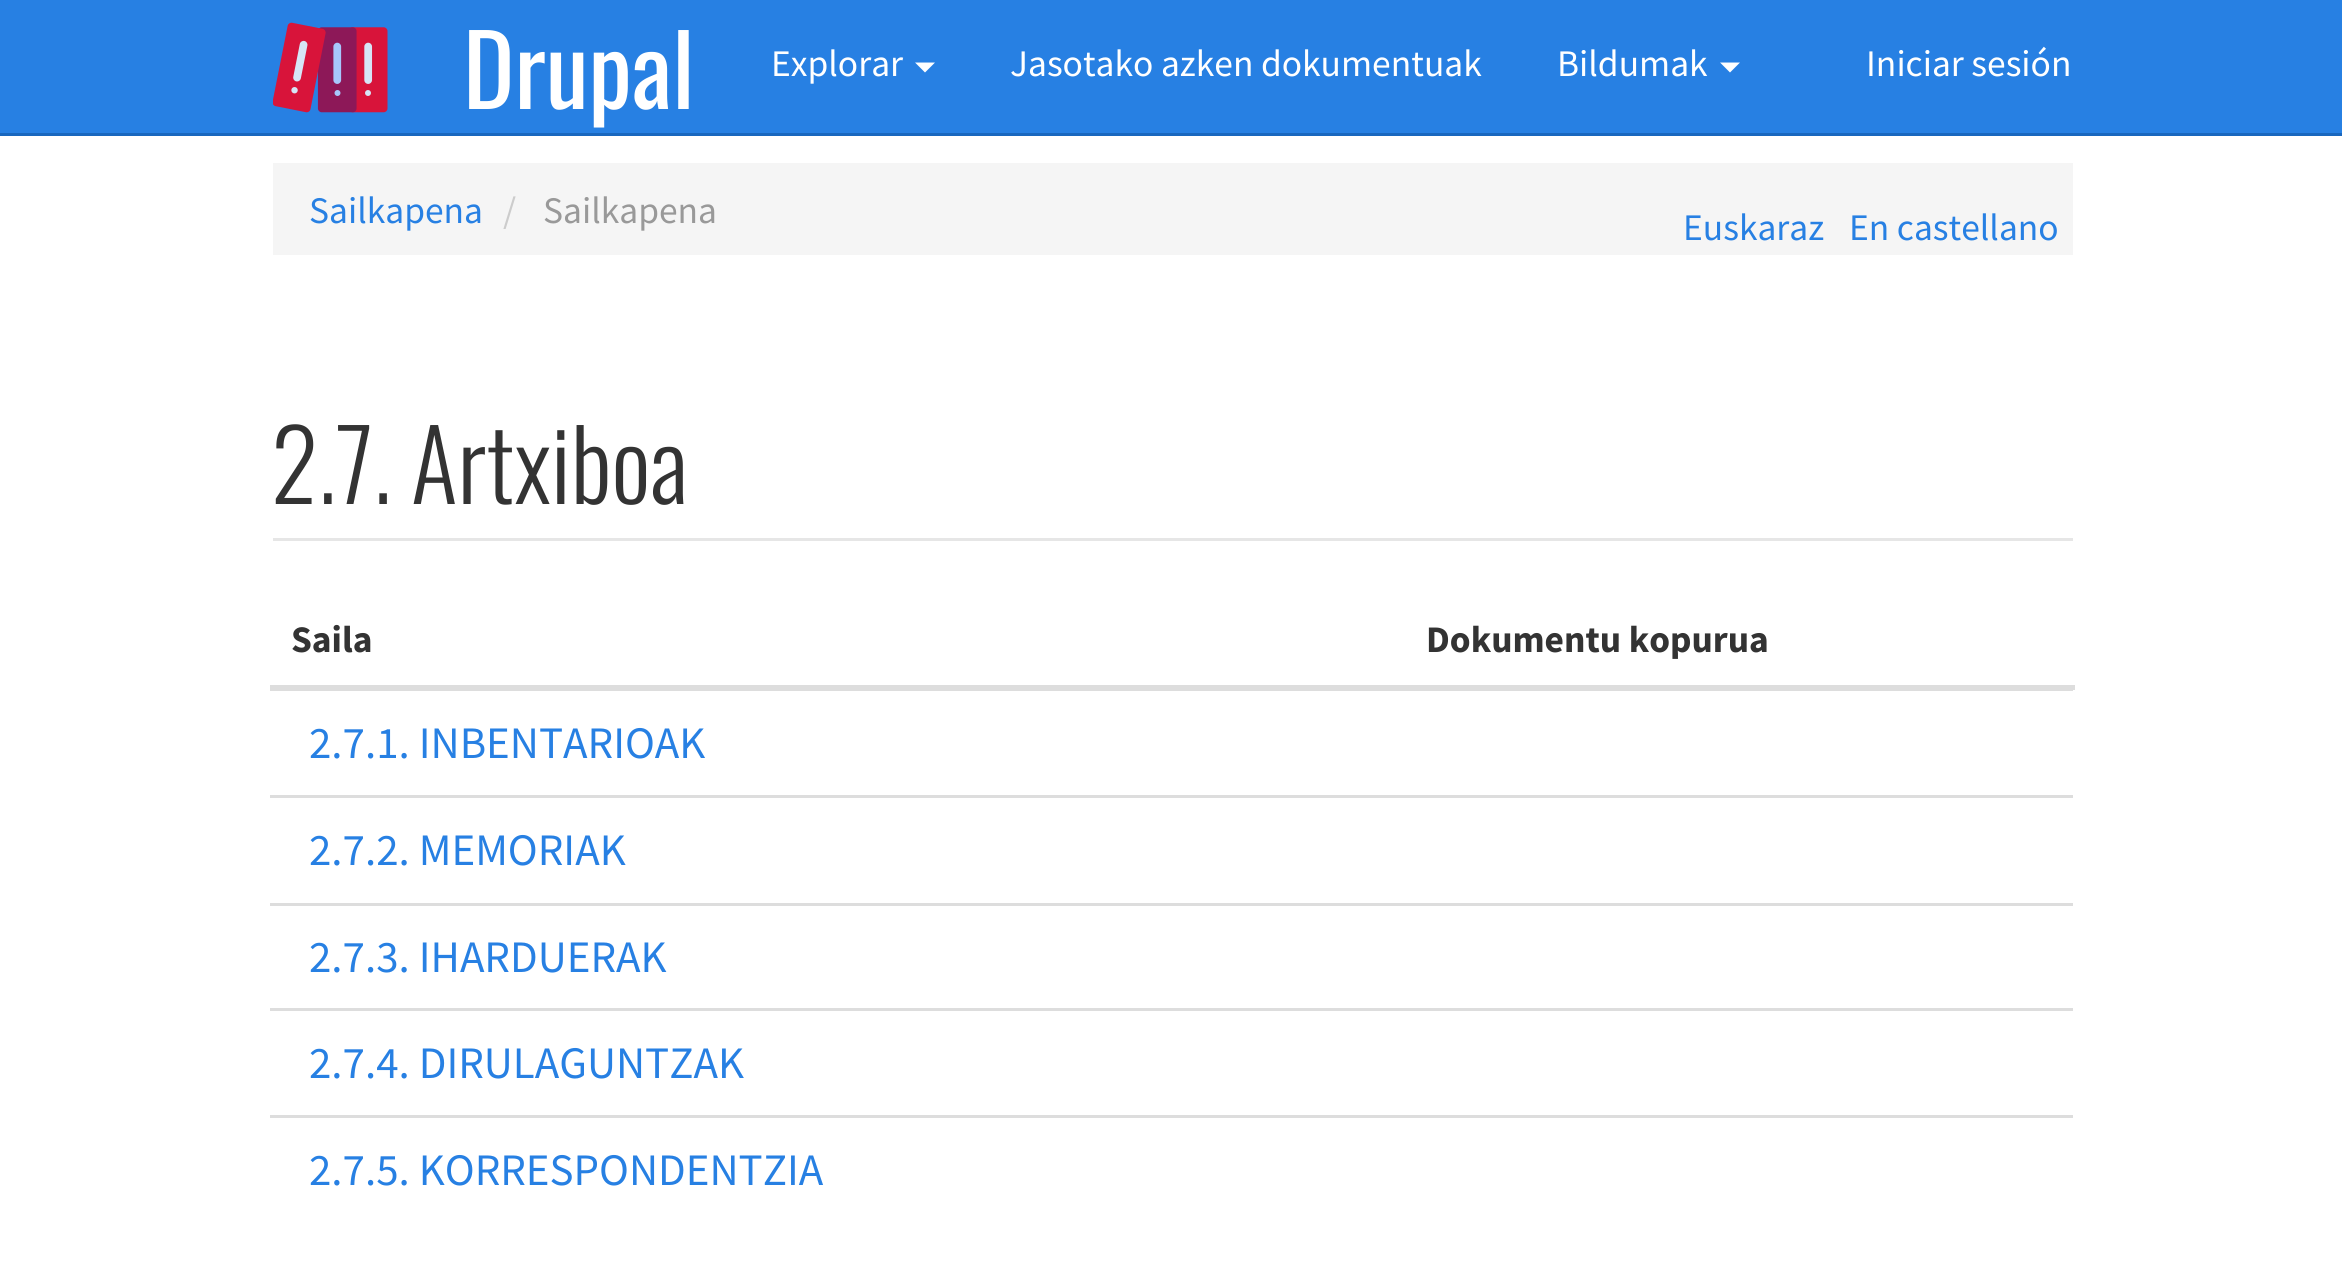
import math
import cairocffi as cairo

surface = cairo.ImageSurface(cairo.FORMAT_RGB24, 2342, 1264)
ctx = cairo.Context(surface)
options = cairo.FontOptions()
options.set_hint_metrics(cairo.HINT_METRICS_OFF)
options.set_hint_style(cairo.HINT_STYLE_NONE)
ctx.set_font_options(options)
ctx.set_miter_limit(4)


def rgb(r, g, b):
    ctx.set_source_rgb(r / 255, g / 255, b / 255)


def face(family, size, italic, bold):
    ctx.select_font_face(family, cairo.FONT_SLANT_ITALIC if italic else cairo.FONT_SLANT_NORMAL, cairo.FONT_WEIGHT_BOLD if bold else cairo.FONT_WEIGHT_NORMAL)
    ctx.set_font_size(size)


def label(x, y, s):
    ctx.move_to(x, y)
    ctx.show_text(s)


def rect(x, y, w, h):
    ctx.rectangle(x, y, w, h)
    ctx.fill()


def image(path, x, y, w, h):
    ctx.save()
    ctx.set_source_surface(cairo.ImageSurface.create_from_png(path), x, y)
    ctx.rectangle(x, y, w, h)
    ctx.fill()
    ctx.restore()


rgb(255, 255, 255)
ctx.paint()
rgb(39, 128, 227)
rect(0, 0, 2342, 133)
rgb(25, 103, 190)
rect(0, 133, 2342, 3)
image('image0.png', 273, 22, 115, 91)
face('Oswald', 97.5, 0, 0)
rgb(255, 255, 255)
label(463, 109, 'Drupal')
face('Source Sans Pro', 37.5, 0, 0)
label(771, 76, 'Explorar')
ctx.new_path()
ctx.move_to(915, 62.5)
ctx.line_to(935, 62.5)
ctx.line_to(925, 72.5)
ctx.close_path()
ctx.fill()
label(1010, 76, 'Jasotako azken dokumentuak')
label(1557, 76, 'Bildumak')
ctx.new_path()
ctx.move_to(1720, 62.5)
ctx.line_to(1740, 62.5)
ctx.line_to(1730, 72.5)
ctx.close_path()
ctx.fill()
label(1866, 76, 'Iniciar sesión')
rgb(245, 245, 245)
rect(273, 163, 1800, 92)
rgb(39, 128, 227)
label(309, 223, 'Sailkapena')
rgb(204, 204, 204)
label(503, 223, '/')
rgb(153, 153, 153)
label(543, 223, 'Sailkapena')
rgb(39, 128, 227)
label(1683, 240, 'Euskaraz')
label(1849, 240, 'En castellano')
rgb(230, 230, 230)
rect(273, 538, 1800, 3)
face('Oswald Light', 97.5, 0, 0)
rgb(51, 51, 51)
label(271, 504, '2.7. Artxiboa')
face('Source Sans Pro', 37.5, 0, 1)
label(291, 652, 'Saila')
rgb(221, 221, 221)
rect(270, 685, 1805, 5)
rgb(51, 51, 51)
label(1426, 652, 'Dokumentu kopurua')
rgb(221, 221, 221)
rect(270, 690, 1803, 1)
face('Source Sans Pro', 45, 0, 0)
rgb(39, 128, 227)
label(309, 758, '2.7.1. INBENTARIOAK')
rgb(221, 221, 221)
rect(270, 795, 1803, 3)
rgb(39, 128, 227)
label(309, 865, '2.7.2. MEMORIAK')
rgb(221, 221, 221)
rect(270, 903, 1803, 3)
rgb(39, 128, 227)
label(309, 972, '2.7.3. IHARDUERAK')
rgb(221, 221, 221)
rect(270, 1008, 1803, 3)
rgb(39, 128, 227)
label(309, 1078, '2.7.4. DIRULAGUNTZAK')
rgb(221, 221, 221)
rect(270, 1115, 1803, 3)
rgb(39, 128, 227)
label(309, 1185, '2.7.5. KORRESPONDENTZIA')
surface.write_to_png('render.png')
